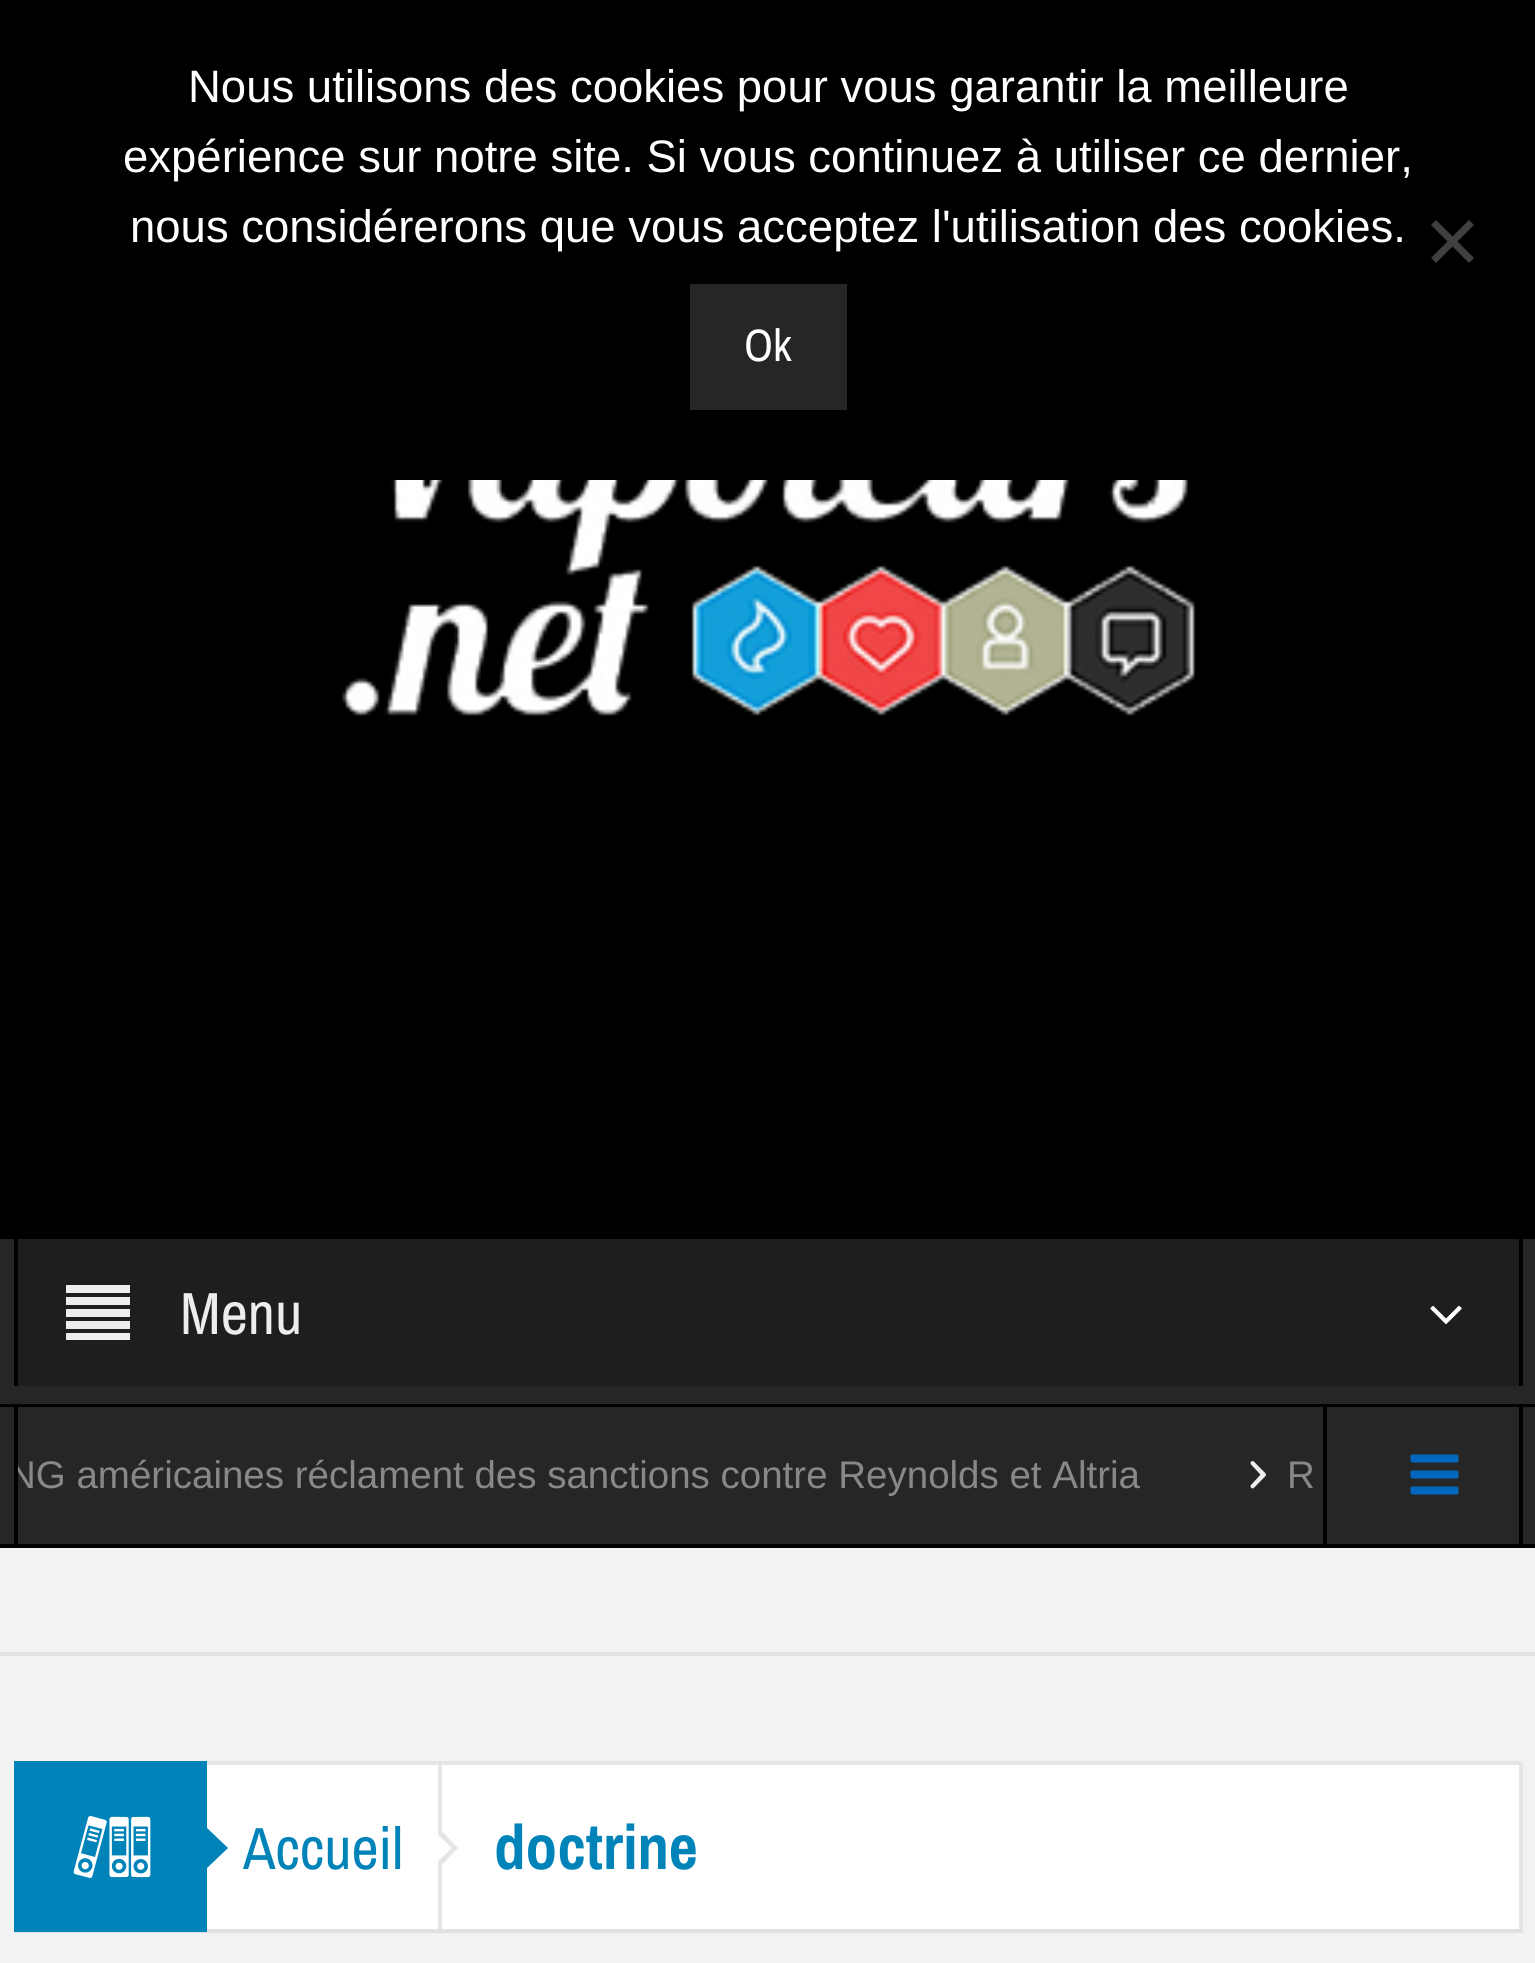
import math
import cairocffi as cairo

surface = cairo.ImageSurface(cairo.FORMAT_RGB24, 1535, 1963)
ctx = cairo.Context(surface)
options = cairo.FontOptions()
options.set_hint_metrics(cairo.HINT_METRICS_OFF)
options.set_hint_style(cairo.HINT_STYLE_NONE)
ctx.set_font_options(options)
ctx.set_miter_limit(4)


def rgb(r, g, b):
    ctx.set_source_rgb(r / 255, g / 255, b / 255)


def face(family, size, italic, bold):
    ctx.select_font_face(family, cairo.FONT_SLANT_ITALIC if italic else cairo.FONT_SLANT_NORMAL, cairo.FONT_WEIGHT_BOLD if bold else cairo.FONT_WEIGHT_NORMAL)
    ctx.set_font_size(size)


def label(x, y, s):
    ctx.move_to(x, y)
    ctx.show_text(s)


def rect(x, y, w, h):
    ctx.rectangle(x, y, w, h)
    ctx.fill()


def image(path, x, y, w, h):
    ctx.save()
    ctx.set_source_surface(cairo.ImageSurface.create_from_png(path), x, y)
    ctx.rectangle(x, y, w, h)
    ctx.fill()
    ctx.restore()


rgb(242, 242, 242)
ctx.paint()
rgb(0, 0, 0)
rect(0, 0, 1535, 1239)
face('Liberation Sans', 45.5, 0, 0)
rgb(255, 255, 255)
label(188, 102, 'Nous utilisons des cookies pour vous garantir la meilleure')
label(123, 172, 'expérience sur notre site. Si vous continuez à utiliser ce dernier,')
label(130, 242, 'nous considérerons que vous acceptez l\'utilisation des cookies.')
rgb(64, 64, 64)
ctx.new_path()
ctx.move_to(1469, 220)
ctx.line_to(1474, 225)
ctx.line_to(1436, 263)
ctx.line_to(1431, 258)
ctx.close_path()
ctx.fill()
ctx.new_path()
ctx.move_to(1431, 225)
ctx.line_to(1436, 220)
ctx.line_to(1474, 258)
ctx.line_to(1469, 263)
ctx.close_path()
ctx.fill()
rgb(38, 38, 38)
rect(690, 284, 157, 126)
face('Archivo Narrow', 45.5, 0, 0)
rgb(255, 255, 255)
label(744, 361, 'Ok')
image('image0.png', 341, 480, 855, 236)
rgb(38, 38, 38)
rect(0, 1239, 1535, 165)
rgb(0, 0, 0)
rect(0, 1404, 1535, 3)
rgb(30, 30, 30)
rect(18, 1239, 1501, 147)
rgb(0, 0, 0)
rect(1519, 1239, 4, 147)
rect(14, 1239, 4, 147)
rgb(237, 237, 237)
ctx.new_path()
ctx.move_to(66, 1285)
ctx.line_to(130, 1285)
ctx.line_to(130, 1293)
ctx.line_to(66, 1293)
ctx.close_path()
ctx.move_to(66, 1297)
ctx.line_to(130, 1297)
ctx.line_to(130, 1305)
ctx.line_to(66, 1305)
ctx.close_path()
ctx.move_to(66, 1309)
ctx.line_to(130, 1309)
ctx.line_to(130, 1317)
ctx.line_to(66, 1317)
ctx.close_path()
ctx.move_to(66, 1321)
ctx.line_to(130, 1321)
ctx.line_to(130, 1329)
ctx.line_to(66, 1329)
ctx.close_path()
ctx.move_to(66, 1333)
ctx.line_to(130, 1333)
ctx.line_to(130, 1340)
ctx.line_to(66, 1340)
ctx.close_path()
ctx.fill()
face('Archivo Narrow', 59.5, 0, 0)
label(180, 1334, 'Menu')
image('image1.png', 1430, 1306, 32, 18)
rgb(38, 38, 38)
rect(0, 1407, 1535, 137)
rgb(0, 0, 0)
rect(0, 1544, 1535, 4)
rect(1323, 1407, 4, 140)
rect(14, 1407, 4, 140)
ctx.save()
ctx.rectangle(18, 1407, 1298, 137)
ctx.clip()
face('Liberation Sans', 38.5, 0, 0)
rgb(136, 136, 136)
label(8, 1488, 'NG américaines réclament des sanctions contre Reynolds et Altria')
ctx.restore()
image('image2.png', 1250, 1461, 16, 28)
face('Liberation Sans', 38.5, 0, 0)
rgb(136, 136, 136)
label(1287, 1488, 'R')
rgb(0, 0, 0)
rect(1519, 1407, 4, 140)
image('image3.png', 1410, 1454, 49, 41)
rgb(225, 225, 225)
rect(0, 1652, 1535, 4)
rgb(255, 255, 255)
rect(207, 1765, 1312, 164)
rgb(229, 229, 229)
rect(207, 1761, 1316, 4)
rect(1519, 1761, 4, 171)
rgb(225, 225, 225)
rect(14, 1929, 1509, 4)
rgb(0, 131, 185)
rect(14, 1761, 193, 171)
image('image4.png', 73, 1816, 78, 62)
ctx.new_path()
ctx.move_to(206, 1869)
ctx.line_to(206, 1827)
ctx.line_to(228, 1848)
ctx.close_path()
ctx.fill()
rgb(229, 229, 229)
rect(438, 1764, 4, 165)
face('Archivo Narrow', 59.5, 0, 0)
rgb(0, 131, 185)
label(243, 1869, 'Accueil')
rgb(229, 229, 229)
ctx.new_path()
ctx.move_to(438, 1869)
ctx.line_to(438, 1827)
ctx.line_to(458, 1848)
ctx.close_path()
ctx.fill()
rgb(255, 255, 255)
ctx.new_path()
ctx.move_to(437.5, 1862)
ctx.line_to(437.5, 1834)
ctx.line_to(451.5, 1848)
ctx.close_path()
ctx.fill()
face('Archivo Narrow', 63, 0, 1)
rgb(0, 131, 185)
label(494, 1869, 'doctrine')
surface.write_to_png('render.png')
